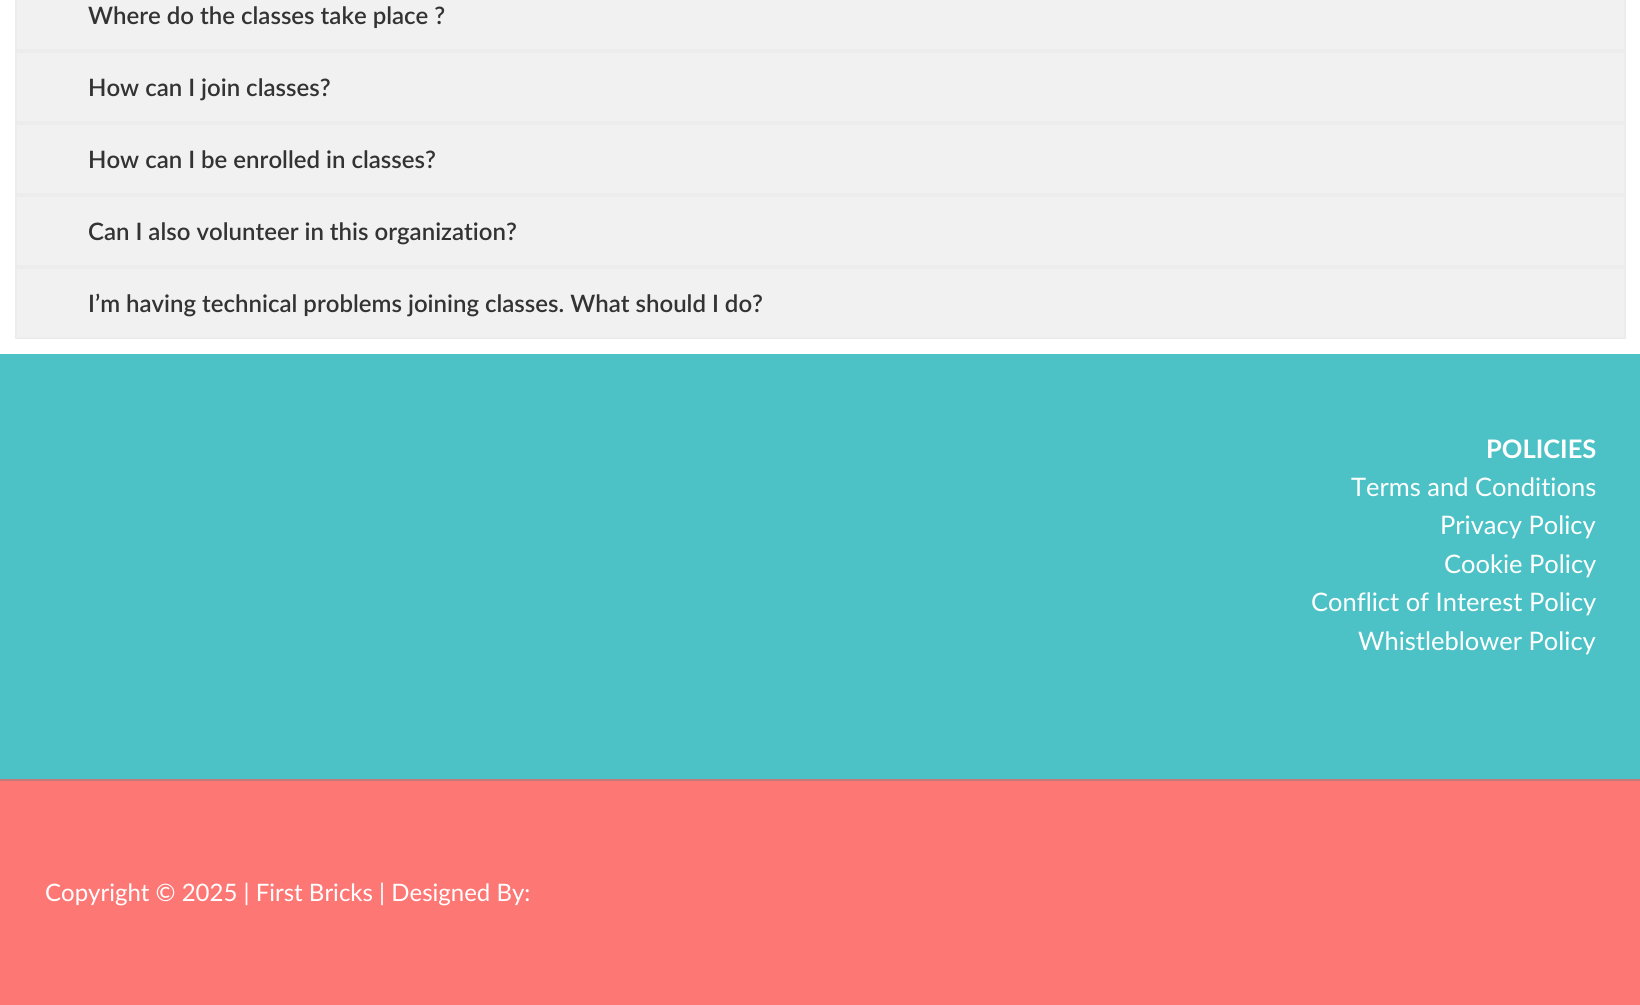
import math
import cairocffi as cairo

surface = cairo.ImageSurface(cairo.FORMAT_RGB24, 1640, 1005)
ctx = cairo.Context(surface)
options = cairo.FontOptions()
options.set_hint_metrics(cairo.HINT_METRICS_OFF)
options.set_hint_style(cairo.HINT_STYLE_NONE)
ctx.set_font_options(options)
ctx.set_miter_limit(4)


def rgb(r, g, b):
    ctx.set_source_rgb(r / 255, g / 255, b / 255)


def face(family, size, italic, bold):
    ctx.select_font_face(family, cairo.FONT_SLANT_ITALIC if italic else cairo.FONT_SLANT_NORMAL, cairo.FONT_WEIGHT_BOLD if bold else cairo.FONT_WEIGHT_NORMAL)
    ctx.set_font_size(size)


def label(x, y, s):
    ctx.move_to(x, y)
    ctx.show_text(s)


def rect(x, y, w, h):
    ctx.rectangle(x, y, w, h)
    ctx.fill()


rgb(255, 255, 255)
ctx.paint()
rgb(241, 241, 241)
ctx.rectangle(16, -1, 1609, 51)
ctx.fill_preserve()
rgb(236, 236, 236)
ctx.stroke()
face('Lato SemiBold', 24, 0, 0)
rgb(51, 51, 51)
label(88, 24, 'Where do the classes take place ?')
rgb(241, 241, 241)
ctx.rectangle(16, 52, 1609, 70)
ctx.fill_preserve()
rgb(236, 236, 236)
ctx.stroke()
rgb(51, 51, 51)
label(88, 96, 'How can I join classes?')
rgb(241, 241, 241)
ctx.rectangle(16, 124, 1609, 70)
ctx.fill_preserve()
rgb(236, 236, 236)
ctx.stroke()
rgb(51, 51, 51)
label(88, 168, 'How can I be enrolled in classes?')
rgb(241, 241, 241)
ctx.rectangle(16, 196, 1609, 70)
ctx.fill_preserve()
rgb(236, 236, 236)
ctx.stroke()
rgb(51, 51, 51)
label(88, 240, 'Can I also volunteer in this organization?')
rgb(241, 241, 241)
ctx.rectangle(16, 268, 1609, 70)
ctx.fill_preserve()
rgb(236, 236, 236)
ctx.stroke()
rgb(51, 51, 51)
label(88, 312, 'I’m having technical problems joining classes. What should I do?')
rgb(76, 194, 198)
rect(0, 354, 1640, 425)
face('Lato', 25.5, 0, 1)
rgb(255, 255, 255)
label(1486, 458, 'POLICIES')
face('Lato', 25.5, 0, 0)
label(1351, 496, 'Terms and Conditions')
label(1440, 534, 'Privacy Policy')
label(1444, 573, 'Cookie Policy')
label(1311, 611, 'Conflict of Interest Policy')
label(1358, 650, 'Whistleblower Policy')
rgb(253, 119, 116)
rect(0, 781, 1640, 224)
rgb(193, 122, 120)
rect(0, 779, 1640, 2)
face('Lato', 24, 0, 0)
rgb(255, 255, 255)
label(45, 901, 'Copyright © 2025 | First Bricks | Designed By:')
surface.write_to_png('render.png')
